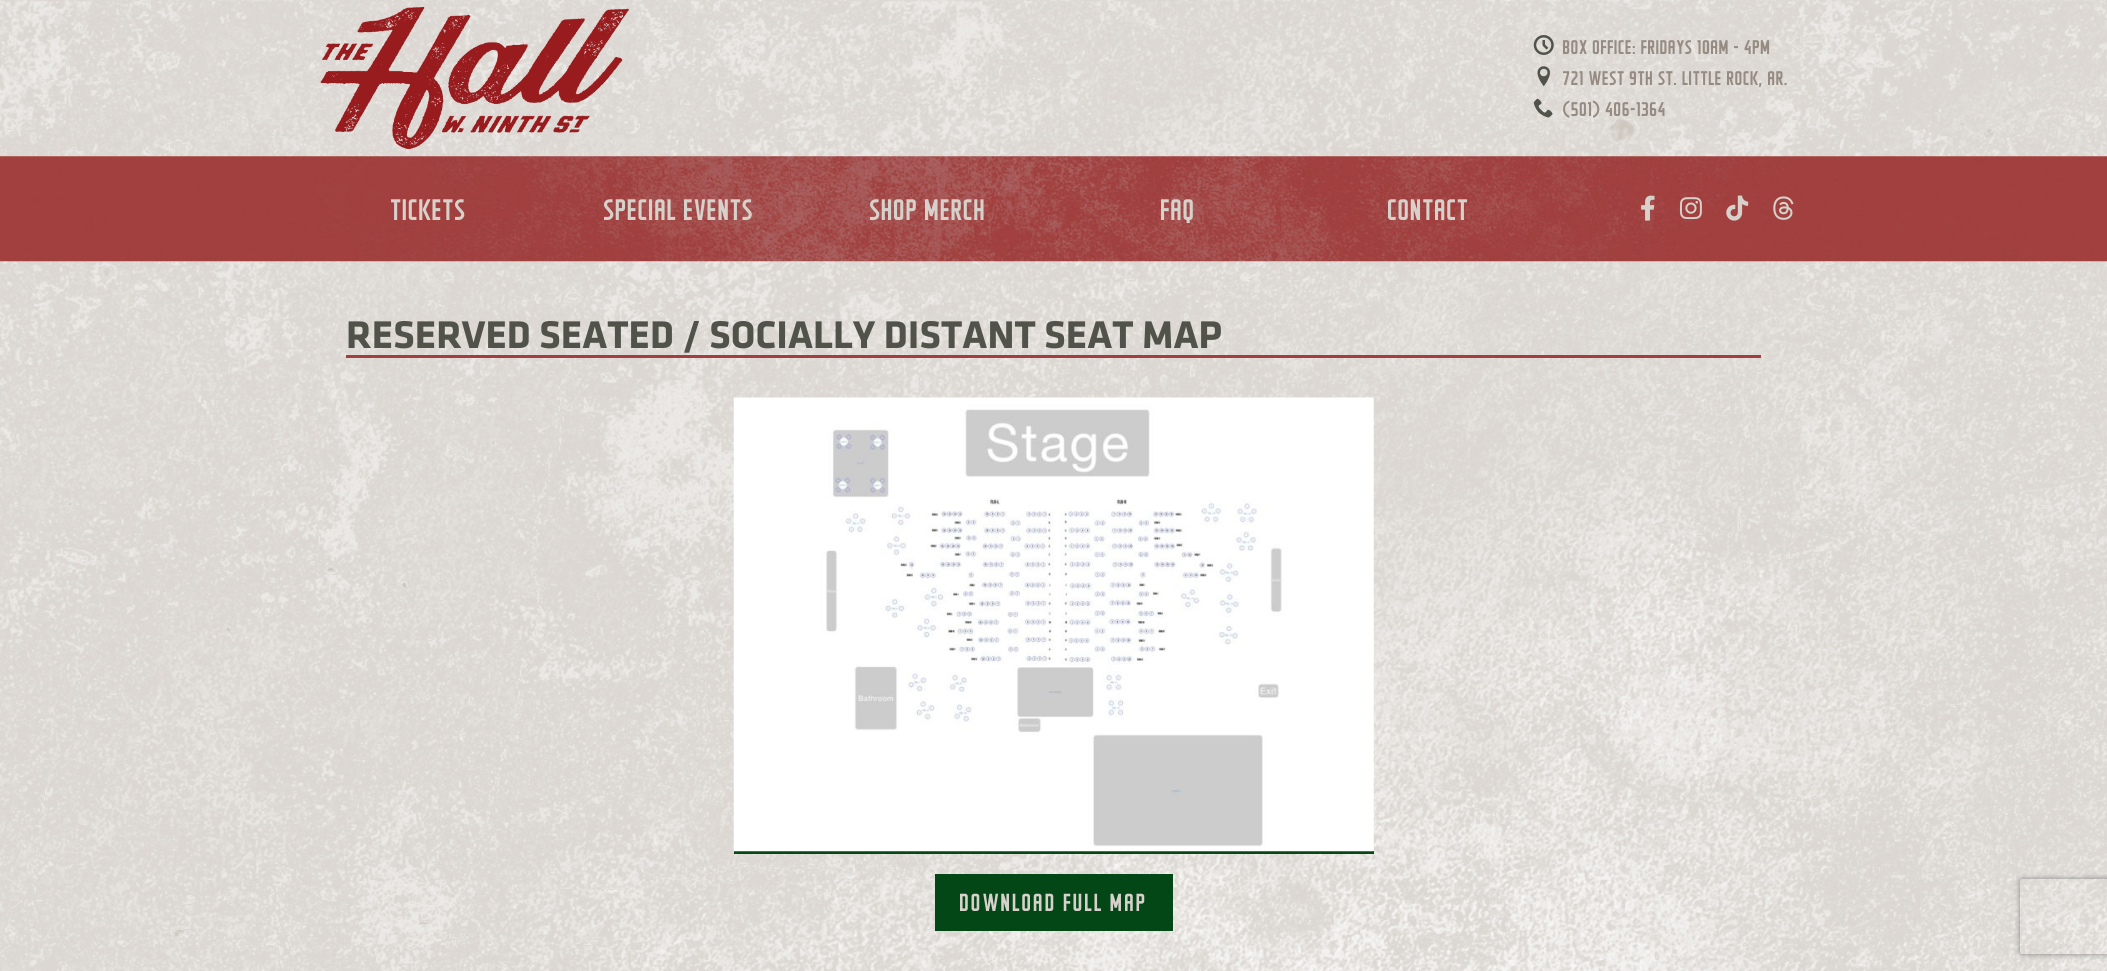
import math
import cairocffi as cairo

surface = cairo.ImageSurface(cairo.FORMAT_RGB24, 2107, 971)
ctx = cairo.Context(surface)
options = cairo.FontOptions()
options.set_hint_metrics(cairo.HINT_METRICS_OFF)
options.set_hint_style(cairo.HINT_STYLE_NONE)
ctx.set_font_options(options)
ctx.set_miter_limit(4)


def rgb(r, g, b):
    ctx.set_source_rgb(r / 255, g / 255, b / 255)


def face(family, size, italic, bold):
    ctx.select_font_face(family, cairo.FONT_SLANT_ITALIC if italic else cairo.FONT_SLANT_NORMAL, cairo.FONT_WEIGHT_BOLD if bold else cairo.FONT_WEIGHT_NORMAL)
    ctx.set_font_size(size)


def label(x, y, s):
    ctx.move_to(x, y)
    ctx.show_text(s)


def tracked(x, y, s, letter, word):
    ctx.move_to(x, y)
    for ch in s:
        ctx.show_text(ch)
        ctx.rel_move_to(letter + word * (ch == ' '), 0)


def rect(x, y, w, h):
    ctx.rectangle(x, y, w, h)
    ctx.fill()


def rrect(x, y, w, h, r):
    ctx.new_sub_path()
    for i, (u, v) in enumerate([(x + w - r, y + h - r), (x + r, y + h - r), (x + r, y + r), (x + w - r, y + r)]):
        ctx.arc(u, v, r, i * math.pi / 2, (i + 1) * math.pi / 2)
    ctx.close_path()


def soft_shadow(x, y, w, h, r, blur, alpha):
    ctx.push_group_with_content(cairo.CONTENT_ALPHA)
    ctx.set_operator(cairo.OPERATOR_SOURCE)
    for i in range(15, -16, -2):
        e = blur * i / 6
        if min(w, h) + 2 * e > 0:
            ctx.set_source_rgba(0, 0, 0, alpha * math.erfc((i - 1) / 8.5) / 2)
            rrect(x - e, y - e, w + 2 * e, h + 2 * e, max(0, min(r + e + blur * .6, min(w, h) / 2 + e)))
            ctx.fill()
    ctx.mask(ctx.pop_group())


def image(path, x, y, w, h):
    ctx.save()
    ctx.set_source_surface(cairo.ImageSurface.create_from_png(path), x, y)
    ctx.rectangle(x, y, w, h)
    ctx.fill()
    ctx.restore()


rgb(255, 255, 255)
ctx.paint()
image('image0.png', 0, 261, 2107, 710)
image('image1.png', 0, 0, 2107, 157)
image('image2.png', 320, 6, 309, 144)
image('image3.png', 1533, 35, 21, 20)
face('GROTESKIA', 20, 0, 0)
rgb(150, 139, 131)
label(1563, 54, 'BOX OFFICE: FRIDAYS 10AM - 4PM')
image('image4.png', 1537, 66, 13, 21)
label(1563, 85, '721 WEST 9TH ST. LITTLE ROCK, AR.')
image('image5.png', 1533, 98, 20, 20)
label(1563, 116, '(501) 406-1364')
image('image6.png', 0, 156, 2107, 106)
face('GROTESKIA', 30, 0, 0)
rgb(214, 209, 202)
label(391, 220, 'TICKETS')
label(604, 220, 'SPECIAL EVENTS')
label(870, 220, 'SHOP MERCH')
label(1161, 220, 'FAQ')
label(1388, 220, 'CONTACT')
image('image7.png', 1641, 195, 14, 26)
image('image8.png', 1680, 197, 22, 23)
image('image9.png', 1726, 195, 23, 26)
image('image10.png', 1773, 196, 21, 24)
rgb(162, 63, 62)
rect(346, 355, 1415, 3)
face('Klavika', 40, 0, 1)
rgb(81, 83, 74)
label(346, 348, 'RESERVED SEATED / SOCIALLY DISTANT SEAT MAP')
rgb(5, 71, 21)
rect(734, 851, 640, 3)
image('image11.png', 733, 397, 641, 455)
rgb(4, 71, 23)
rect(935, 874, 238, 57)
face('GROTESKIA', 25, 0, 0)
rgb(214, 209, 202)
tracked(960, 911, 'DOWNLOAD FULL MAP', 1.25, 0)
ctx.save()
ctx.set_fill_rule(cairo.FILL_RULE_EVEN_ODD)
ctx.new_path()
ctx.move_to(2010, 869)
ctx.line_to(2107, 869)
ctx.line_to(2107, 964)
ctx.line_to(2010, 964)
ctx.close_path()
ctx.move_to(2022.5, 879)
ctx.line_to(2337.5, 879)
ctx.curve_to(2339, 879, 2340, 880, 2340, 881.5)
ctx.line_to(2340, 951.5)
ctx.curve_to(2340, 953, 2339, 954, 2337.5, 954)
ctx.line_to(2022.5, 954)
ctx.curve_to(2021, 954, 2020, 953, 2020, 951.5)
ctx.line_to(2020, 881.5)
ctx.curve_to(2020, 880, 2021, 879, 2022.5, 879)
ctx.close_path()
ctx.clip()
rgb(128, 128, 128)
soft_shadow(2020, 879, 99, 75, 2.5, 3, 1)
ctx.restore()
surface.write_to_png('render.png')
